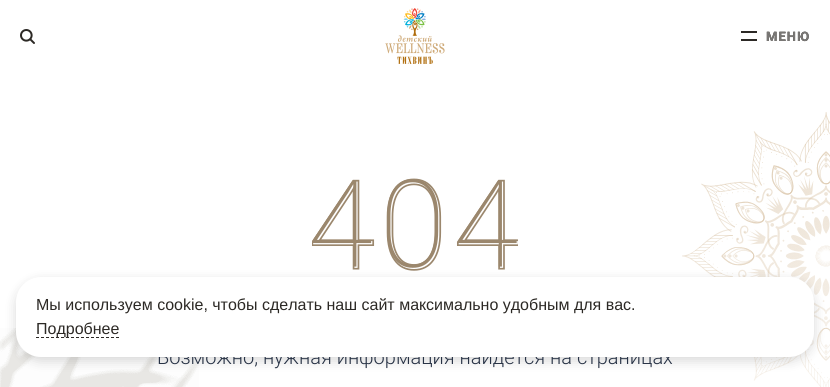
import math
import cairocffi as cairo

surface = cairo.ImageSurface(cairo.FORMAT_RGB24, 830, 387)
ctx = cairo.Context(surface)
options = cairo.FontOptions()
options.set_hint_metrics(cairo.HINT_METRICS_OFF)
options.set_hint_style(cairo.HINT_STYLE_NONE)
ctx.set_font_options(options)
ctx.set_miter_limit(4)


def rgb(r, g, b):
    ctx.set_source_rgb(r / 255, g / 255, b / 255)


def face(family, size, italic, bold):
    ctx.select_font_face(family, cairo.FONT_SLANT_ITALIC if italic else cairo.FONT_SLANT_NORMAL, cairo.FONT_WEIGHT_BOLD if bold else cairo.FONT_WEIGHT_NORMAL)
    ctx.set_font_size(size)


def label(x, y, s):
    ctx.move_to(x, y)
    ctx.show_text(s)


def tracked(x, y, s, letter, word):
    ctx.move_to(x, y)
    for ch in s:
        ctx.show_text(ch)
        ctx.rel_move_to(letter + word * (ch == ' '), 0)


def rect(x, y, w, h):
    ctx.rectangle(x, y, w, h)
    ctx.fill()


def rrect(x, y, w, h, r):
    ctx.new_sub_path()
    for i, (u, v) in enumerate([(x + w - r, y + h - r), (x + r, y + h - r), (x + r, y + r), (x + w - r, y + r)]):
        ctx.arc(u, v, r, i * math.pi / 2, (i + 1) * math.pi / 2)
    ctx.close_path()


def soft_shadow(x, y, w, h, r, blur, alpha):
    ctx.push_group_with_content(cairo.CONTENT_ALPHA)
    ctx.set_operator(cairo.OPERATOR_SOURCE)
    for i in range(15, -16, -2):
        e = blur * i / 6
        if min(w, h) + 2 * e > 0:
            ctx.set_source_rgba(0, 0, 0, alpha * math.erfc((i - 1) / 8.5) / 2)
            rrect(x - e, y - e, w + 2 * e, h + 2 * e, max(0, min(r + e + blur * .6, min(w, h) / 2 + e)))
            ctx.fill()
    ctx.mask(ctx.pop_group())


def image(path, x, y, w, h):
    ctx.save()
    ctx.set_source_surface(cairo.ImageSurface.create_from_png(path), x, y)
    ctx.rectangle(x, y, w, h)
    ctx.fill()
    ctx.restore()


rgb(255, 255, 255)
ctx.paint()
image('image0.png', 20, 29, 15, 15)
image('image1.png', 385, 8, 60, 56)
rgb(44, 41, 37)
rect(741, 31, 16, 2)
face('Roboto', 13, 0, 1)
tracked(766, 41, 'МЕНЮ', 1, 0)
rect(741, 39, 16, 2)
rgb(121, 119, 117)
tracked(766, 41, 'МЕНЮ', 1, 0)
image('image2.png', 0, 328, 199, 59)
image('image3.png', 312, 178, 206, 93)
image('image4.png', 682, 112, 148, 275)
rgb(0, 0, 0)
soft_shadow(16, 281, 798, 80, 25, 6, 0.15)
face('Roboto Light', 20, 0, 0)
rgb(39, 50, 69)
label(157, 364, 'Возможно, нужная информация найдется на страницах')
rgb(255, 255, 255)
rrect(16, 277, 798, 80, 25)
ctx.fill()
face('Liberation Sans', 16, 0, 0)
rgb(44, 41, 37)
label(36, 310, 'Мы используем cookie, чтобы сделать наш сайт максимально удобным для вас.')
ctx.new_path()
ctx.move_to(36, 337.5)
ctx.line_to(119, 337.5)
ctx.set_line_width(1)
ctx.set_dash([3, 2])
ctx.stroke()
label(36, 334, 'Подробнее')
surface.write_to_png('render.png')
